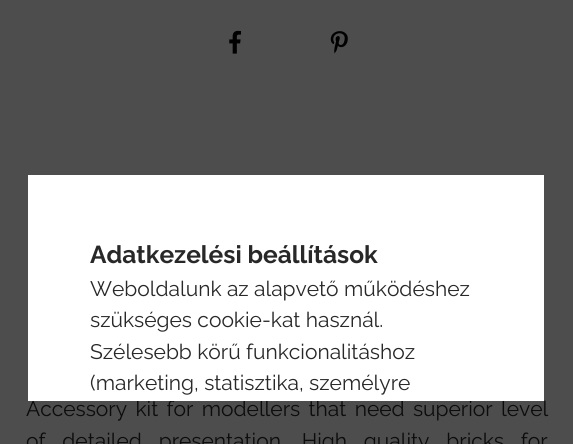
import math
import cairocffi as cairo

surface = cairo.ImageSurface(cairo.FORMAT_RGB24, 573, 444)
ctx = cairo.Context(surface)
options = cairo.FontOptions()
options.set_hint_metrics(cairo.HINT_METRICS_OFF)
options.set_hint_style(cairo.HINT_STYLE_NONE)
ctx.set_font_options(options)
ctx.set_miter_limit(4)


def rgb(r, g, b):
    ctx.set_source_rgb(r / 255, g / 255, b / 255)


def face(family, size, italic, bold):
    ctx.select_font_face(family, cairo.FONT_SLANT_ITALIC if italic else cairo.FONT_SLANT_NORMAL, cairo.FONT_WEIGHT_BOLD if bold else cairo.FONT_WEIGHT_NORMAL)
    ctx.set_font_size(size)


def label(x, y, s):
    ctx.move_to(x, y)
    ctx.show_text(s)


def tracked(x, y, s, letter, word):
    ctx.move_to(x, y)
    for ch in s:
        ctx.show_text(ch)
        ctx.rel_move_to(letter + word * (ch == ' '), 0)


def rect(x, y, w, h):
    ctx.rectangle(x, y, w, h)
    ctx.fill()


def image(path, x, y, w, h):
    ctx.save()
    ctx.set_source_surface(cairo.ImageSurface.create_from_png(path), x, y)
    ctx.rectangle(x, y, w, h)
    ctx.fill()
    ctx.restore()


rgb(77, 77, 77)
ctx.paint()
face('Raleway', 21, 0, 0)
rgb(12, 12, 12)
tracked(26, 416, 'Accessory kit for modellers that need superior level', 0, 3)
rgb(255, 255, 255)
rect(28, 175, 516, 226)
face('Raleway', 24.5, 0, 1)
rgb(40, 40, 40)
label(90, 263, 'Adatkezelési beállítások')
face('Raleway', 21, 0, 0)
label(90, 296, 'Weboldalunk az alapvető működéshez')
label(90, 327, 'szükséges cookie-kat használ.')
label(90, 359, 'Szélesebb körű funkcionalitáshoz')
label(90, 390, '(marketing, statisztika, személyre')
image('image0.png', 229, 30, 12, 24)
image('image1.png', 330, 31, 18, 23)
rgb(12, 12, 12)
tracked(26, 448, 'of detailed presentation. High quality bricks for', 0, 11.5)
surface.write_to_png('render.png')
